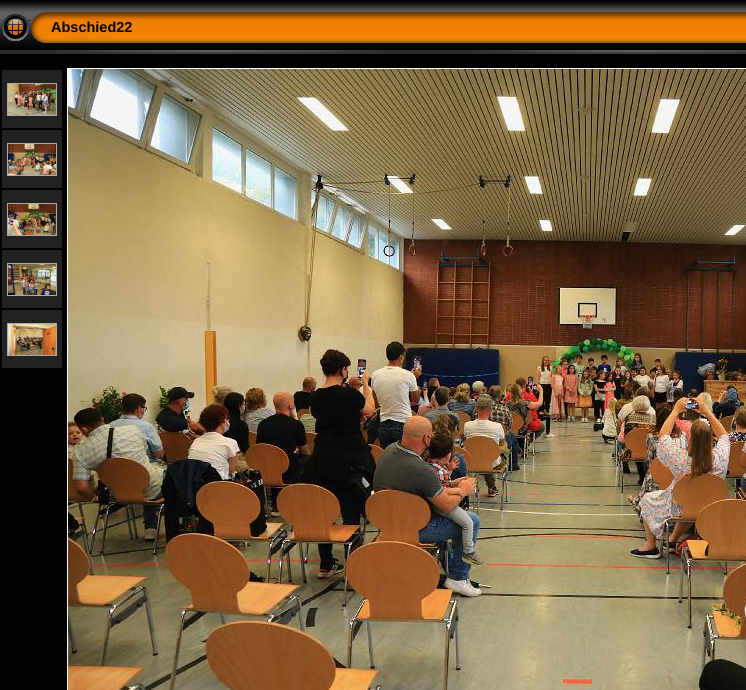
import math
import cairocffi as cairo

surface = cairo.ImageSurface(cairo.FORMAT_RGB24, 746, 690)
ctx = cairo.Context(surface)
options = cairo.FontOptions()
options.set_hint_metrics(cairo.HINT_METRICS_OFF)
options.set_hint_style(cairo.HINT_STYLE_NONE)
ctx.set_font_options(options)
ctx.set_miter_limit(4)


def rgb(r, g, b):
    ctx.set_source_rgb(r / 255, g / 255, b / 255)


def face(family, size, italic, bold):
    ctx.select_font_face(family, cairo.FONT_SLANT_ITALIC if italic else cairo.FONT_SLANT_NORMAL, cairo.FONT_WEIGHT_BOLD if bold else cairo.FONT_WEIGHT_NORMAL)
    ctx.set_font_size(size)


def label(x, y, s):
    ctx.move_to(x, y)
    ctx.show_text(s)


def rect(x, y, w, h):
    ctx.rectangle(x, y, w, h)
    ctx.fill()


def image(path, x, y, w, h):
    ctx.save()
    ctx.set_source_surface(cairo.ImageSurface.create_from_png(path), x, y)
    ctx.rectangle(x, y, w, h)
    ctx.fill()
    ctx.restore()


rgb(0, 0, 0)
ctx.paint()
image('image0.png', 0, 1, 746, 53)
image('image1.png', 0, 14, 31, 27)
image('image2.png', 31, 12, 20, 31)
image('image3.png', 51, 12, 695, 31)
face('Liberation Sans', 14.5, 0, 1)
rgb(0, 0, 0)
label(51, 32, 'Abschied22')
rgb(34, 34, 34)
rect(2, 70, 60, 58)
ctx.rectangle(7.5, 83.5, 49, 32)
rgb(170, 170, 170)
ctx.set_line_width(1)
ctx.stroke()
image('image4.png', 8, 84, 48, 31)
rgb(34, 34, 34)
rect(2, 130, 60, 58)
ctx.rectangle(7.5, 143.5, 49, 32)
rgb(170, 170, 170)
ctx.stroke()
image('image5.png', 8, 144, 48, 31)
rgb(34, 34, 34)
rect(2, 190, 60, 58)
ctx.rectangle(7.5, 203.5, 49, 32)
rgb(170, 170, 170)
ctx.stroke()
image('image6.png', 8, 204, 48, 31)
rgb(34, 34, 34)
rect(2, 250, 60, 58)
ctx.rectangle(7.5, 263.5, 49, 32)
rgb(170, 170, 170)
ctx.stroke()
image('image7.png', 8, 264, 48, 31)
rgb(34, 34, 34)
rect(2, 310, 60, 58)
ctx.rectangle(7.5, 323.5, 49, 32)
rgb(170, 170, 170)
ctx.stroke()
image('image8.png', 8, 324, 48, 31)
ctx.rectangle(67.5, 68.5, 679, 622)
rgb(255, 255, 255)
ctx.stroke()
image('image9.png', 68, 69, 678, 621)
surface.write_to_png('render.png')
